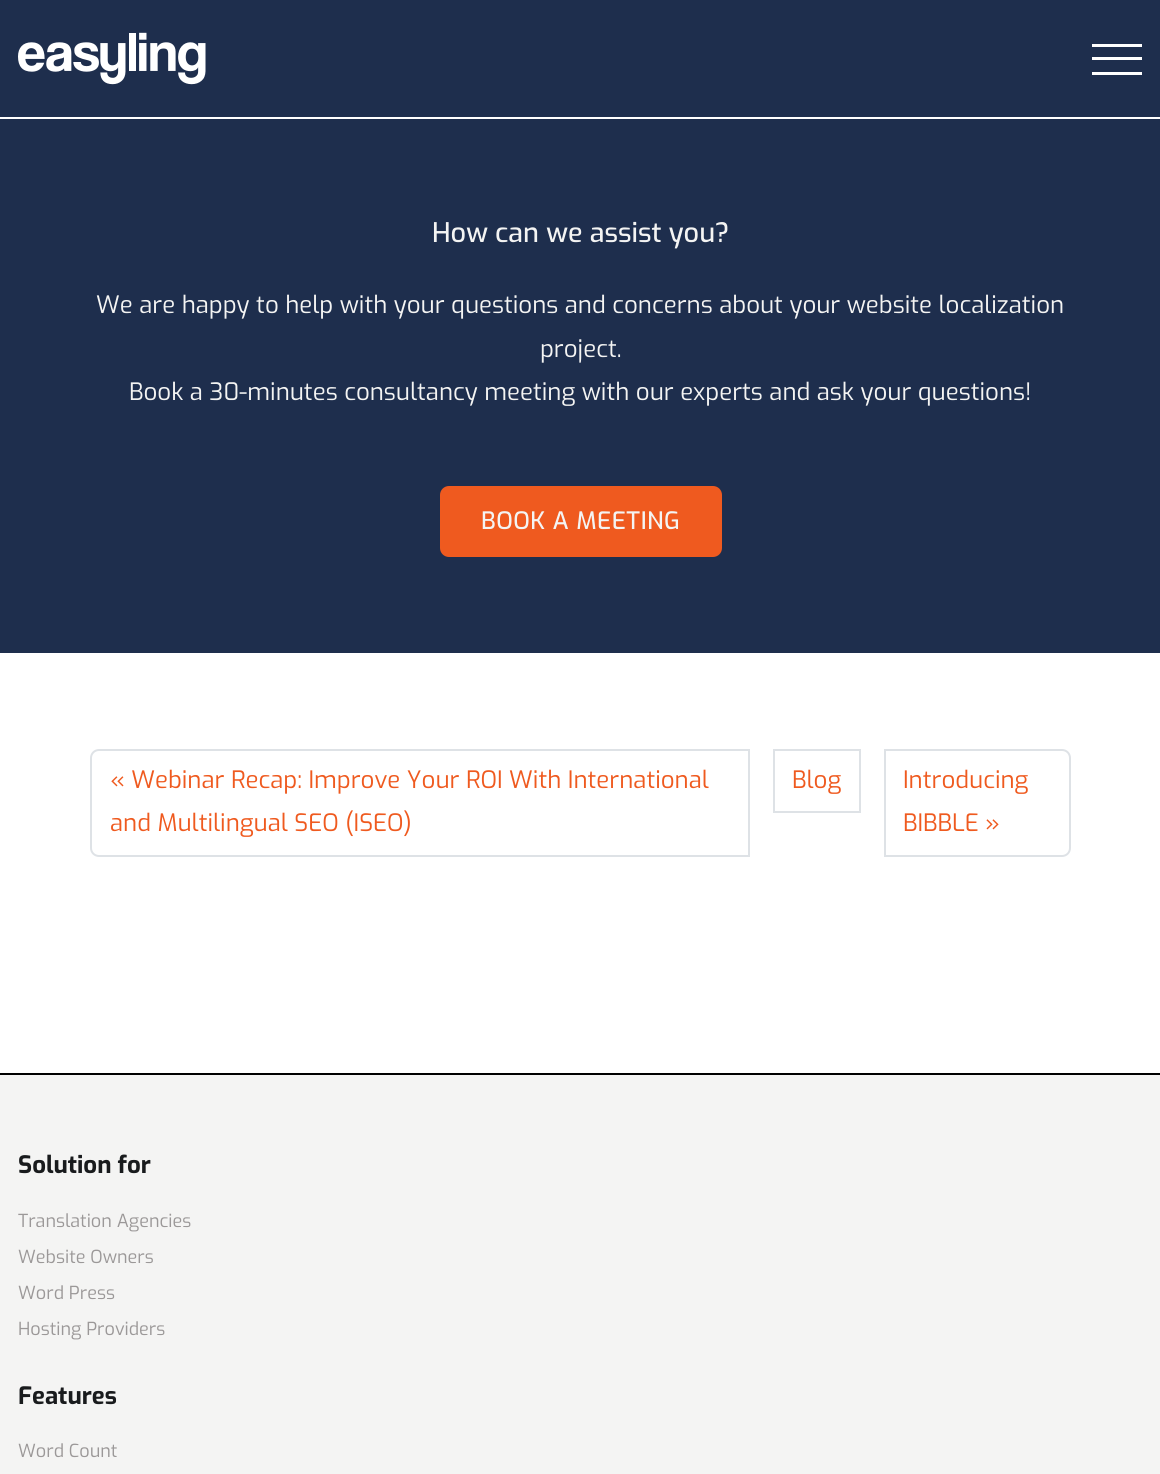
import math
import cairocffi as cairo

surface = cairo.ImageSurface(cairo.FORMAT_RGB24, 1160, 1474)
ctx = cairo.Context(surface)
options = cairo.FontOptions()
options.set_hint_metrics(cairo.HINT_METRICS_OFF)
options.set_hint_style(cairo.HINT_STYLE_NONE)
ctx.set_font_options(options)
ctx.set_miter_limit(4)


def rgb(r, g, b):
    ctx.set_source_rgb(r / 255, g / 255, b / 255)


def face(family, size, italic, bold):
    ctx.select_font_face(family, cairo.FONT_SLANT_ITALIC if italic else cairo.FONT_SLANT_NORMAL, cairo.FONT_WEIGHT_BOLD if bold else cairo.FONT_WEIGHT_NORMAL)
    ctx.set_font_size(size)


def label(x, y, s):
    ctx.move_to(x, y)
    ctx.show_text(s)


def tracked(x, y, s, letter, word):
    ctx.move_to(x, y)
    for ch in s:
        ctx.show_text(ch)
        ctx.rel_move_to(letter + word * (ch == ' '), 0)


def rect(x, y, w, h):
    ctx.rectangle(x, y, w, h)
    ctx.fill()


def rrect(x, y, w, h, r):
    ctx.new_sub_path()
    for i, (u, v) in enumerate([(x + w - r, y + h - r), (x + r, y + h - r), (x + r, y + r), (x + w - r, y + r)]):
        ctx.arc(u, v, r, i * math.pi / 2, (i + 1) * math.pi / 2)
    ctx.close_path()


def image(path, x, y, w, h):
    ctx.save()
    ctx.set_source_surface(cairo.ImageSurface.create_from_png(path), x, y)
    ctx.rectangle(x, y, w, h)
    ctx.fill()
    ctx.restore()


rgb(255, 255, 255)
ctx.paint()
rgb(30, 46, 77)
rect(0, 0, 1160, 117)
image('image0.png', 18, 32, 188, 53)
rgb(255, 255, 255)
rect(1092, 44, 50, 3)
rect(1092, 57, 50, 3)
rect(1092, 72, 50, 3)
rgb(30, 46, 77)
rect(0, 119, 1160, 534)
face('Exo Medium', 27, 0, 0)
rgb(244, 244, 243)
label(432, 242, 'How can we assist you?')
face('Exo', 24, 0, 0)
label(96, 313, 'We are happy to help with your questions and concerns about your website localization')
label(540, 357, 'project.')
label(129, 400, 'Book a 30-minutes consultancy meeting with our experts and ask your questions!')
rgb(239, 90, 31)
rrect(441.5, 487.5, 279, 68, 7.5)
ctx.fill_preserve()
ctx.set_line_width(3)
ctx.stroke()
face('Exo Medium', 24, 0, 0)
rgb(244, 244, 243)
tracked(481, 529, 'BOOK A MEETING', 0.5, 0)
ctx.new_path()
ctx.move_to(99, 750)
ctx.line_to(749, 750)
ctx.line_to(749, 856)
ctx.line_to(99, 856)
ctx.curve_to(94.5, 856, 91, 852.5, 91, 848)
ctx.line_to(91, 758)
ctx.curve_to(91, 753.5, 94.5, 750, 99, 750)
ctx.close_path()
rgb(222, 226, 230)
ctx.set_line_width(2)
ctx.stroke()
face('Exo', 24, 0, 0)
rgb(239, 90, 31)
label(110, 788, '« Webinar Recap: Improve Your ROI With International')
label(110, 831, 'and Multilingual SEO (ISEO)')
ctx.rectangle(774, 750, 86, 62)
rgb(222, 226, 230)
ctx.stroke()
rgb(239, 90, 31)
label(792, 788, 'Blog')
ctx.new_path()
ctx.move_to(885, 750)
ctx.line_to(1062, 750)
ctx.curve_to(1066.5, 750, 1070, 753.5, 1070, 758)
ctx.line_to(1070, 848)
ctx.curve_to(1070, 852.5, 1066.5, 856, 1062, 856)
ctx.line_to(885, 856)
ctx.close_path()
rgb(222, 226, 230)
ctx.stroke()
rgb(239, 90, 31)
label(903, 788, 'Introducing')
label(903, 831, 'BIBBLE »')
rgb(244, 244, 243)
rect(0, 1075, 1160, 399)
rgb(0, 0, 0)
rect(0, 1073, 1160, 2)
face('Exo', 24, 0, 1)
rgb(25, 27, 29)
label(18, 1173, 'Solution for')
face('Exo', 18, 0, 0)
rgb(155, 152, 152)
label(18, 1227, 'Translation Agencies')
label(18, 1263, 'Website Owners')
label(18, 1299, 'Word Press')
label(18, 1335, 'Hosting Providers')
face('Exo', 24, 0, 1)
rgb(25, 27, 29)
label(18, 1404, 'Features')
face('Exo', 18, 0, 0)
rgb(155, 152, 152)
label(18, 1457, 'Word Count')
surface.write_to_png('render.png')
